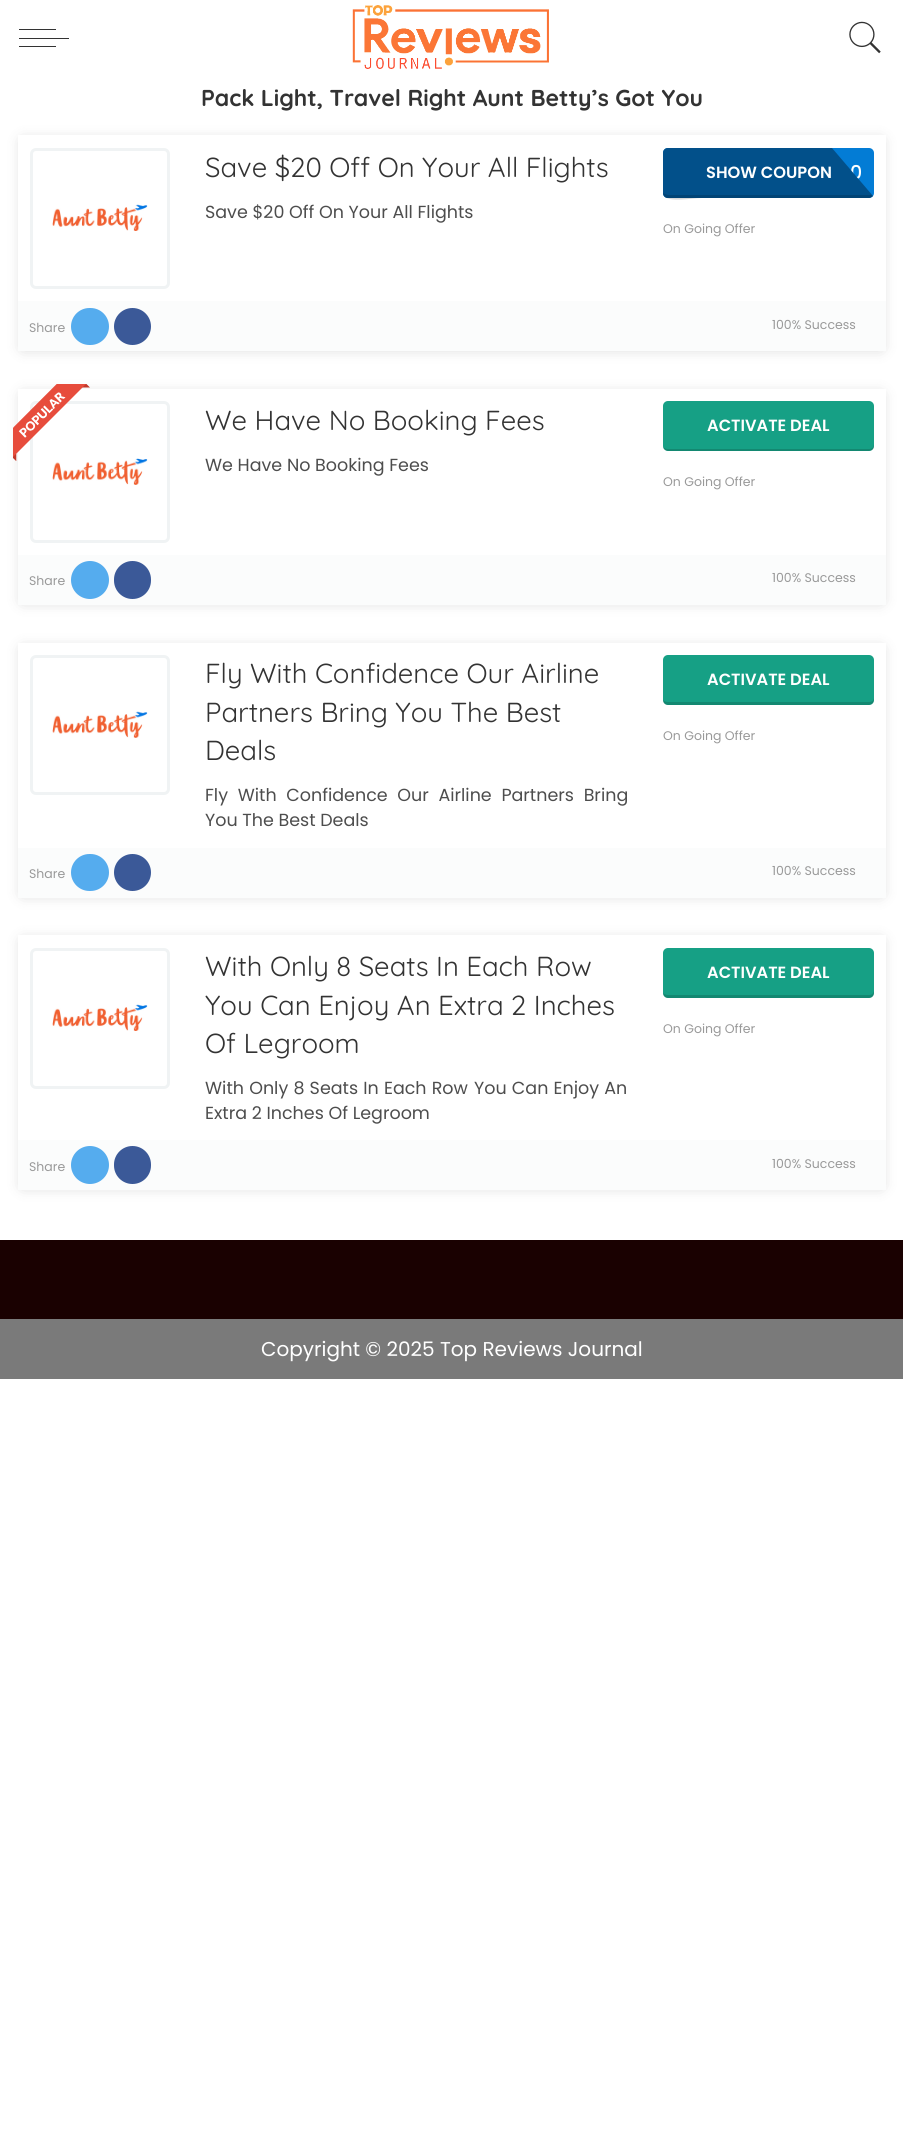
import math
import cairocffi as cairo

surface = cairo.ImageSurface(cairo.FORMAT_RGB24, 903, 2152)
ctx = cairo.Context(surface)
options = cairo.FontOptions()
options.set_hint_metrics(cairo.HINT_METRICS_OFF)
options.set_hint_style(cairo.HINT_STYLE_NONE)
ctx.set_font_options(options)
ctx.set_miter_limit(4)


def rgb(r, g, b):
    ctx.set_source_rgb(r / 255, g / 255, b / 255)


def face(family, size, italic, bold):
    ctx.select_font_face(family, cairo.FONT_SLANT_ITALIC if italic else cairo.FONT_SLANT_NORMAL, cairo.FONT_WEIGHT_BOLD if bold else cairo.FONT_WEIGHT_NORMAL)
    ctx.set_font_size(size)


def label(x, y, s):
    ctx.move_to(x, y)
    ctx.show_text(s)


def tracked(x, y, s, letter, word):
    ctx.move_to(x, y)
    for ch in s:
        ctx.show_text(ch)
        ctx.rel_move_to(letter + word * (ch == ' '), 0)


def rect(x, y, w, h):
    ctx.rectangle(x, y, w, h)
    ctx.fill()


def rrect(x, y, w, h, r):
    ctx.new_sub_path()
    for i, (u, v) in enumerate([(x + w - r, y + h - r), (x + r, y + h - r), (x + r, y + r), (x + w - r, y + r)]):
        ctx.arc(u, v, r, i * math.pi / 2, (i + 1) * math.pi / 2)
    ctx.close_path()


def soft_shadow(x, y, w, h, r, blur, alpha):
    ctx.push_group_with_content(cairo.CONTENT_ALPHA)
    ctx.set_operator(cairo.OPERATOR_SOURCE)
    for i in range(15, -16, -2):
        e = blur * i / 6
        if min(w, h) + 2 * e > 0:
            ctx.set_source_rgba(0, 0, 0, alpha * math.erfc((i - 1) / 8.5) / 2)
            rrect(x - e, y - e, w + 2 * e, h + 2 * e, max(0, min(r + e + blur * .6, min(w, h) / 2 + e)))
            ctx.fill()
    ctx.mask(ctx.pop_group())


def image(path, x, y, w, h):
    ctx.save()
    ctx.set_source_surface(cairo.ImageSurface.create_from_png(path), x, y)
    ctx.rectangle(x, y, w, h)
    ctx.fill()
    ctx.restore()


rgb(255, 255, 255)
ctx.paint()
rgb(51, 51, 51)
rect(19, 38, 50, 1)
rect(19, 29, 37, 1)
rect(19, 46, 37, 1)
image('image0.png', 352, 5, 197, 64)
image('image1.png', 849, 21, 32, 33)
face('Quicksand', 23, 0, 1)
label(201, 106, 'Pack Light, Travel Right Aunt Betty’s Got You')
ctx.save()
ctx.set_fill_rule(cairo.FILL_RULE_EVEN_ODD)
ctx.new_path()
ctx.move_to(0, 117)
ctx.line_to(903, 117)
ctx.line_to(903, 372)
ctx.line_to(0, 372)
ctx.close_path()
ctx.move_to(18, 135)
ctx.line_to(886, 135)
ctx.line_to(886, 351)
ctx.line_to(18, 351)
ctx.close_path()
ctx.clip()
rgb(0, 0, 0)
soft_shadow(23, 141, 858, 207, 0, 7.5, 0.2)
ctx.restore()
rrect(31.5, 149.5, 137, 138, 4.5)
rgb(240, 243, 244)
ctx.set_line_width(3)
ctx.stroke()
image('image2.png', 52, 204, 96, 27)
face('Quicksand', 27.5, 0, 0)
rgb(51, 51, 51)
label(205, 177, 'Save $20 Off On Your All Flights')
face('Poppins', 17.5, 0, 0)
rgb(77, 77, 77)
label(205, 218, 'Save $20 Off On Your All Flights')
rgb(3, 124, 213)
rrect(663, 148, 211, 50, 5)
ctx.fill()
face('Poppins Medium', 19, 0, 0)
rgb(255, 255, 255)
label(850, 179, '0')
rgb(2, 80, 138)
ctx.new_path()
ctx.move_to(873, 196)
ctx.curve_to(872, 197, 870, 198, 869, 198)
ctx.line_to(668, 198)
ctx.curve_to(665, 198, 663, 196, 663, 193)
ctx.line_to(663, 153)
ctx.curve_to(663, 150, 665, 148, 668, 148)
ctx.line_to(832, 148)
ctx.close_path()
ctx.fill()
ctx.set_source_rgba(0, 0, 0, 0.15)
ctx.new_path()
ctx.move_to(873, 196)
ctx.line_to(870, 198)
ctx.line_to(702, 198)
ctx.curve_to(692, 198, 663, 204, 663, 193)
ctx.line_to(665, 194)
ctx.line_to(668, 195)
ctx.line_to(869, 195)
ctx.line_to(871, 195)
ctx.close_path()
ctx.fill()
face('Poppins SemiBold', 16.25, 0, 0)
rgb(255, 255, 255)
label(706, 178, 'SHOW COUPON')
face('Poppins', 12.5, 0, 0)
rgb(153, 153, 153)
label(663, 233, 'On Going Offer')
rgb(251, 252, 252)
rect(18, 301, 868, 50)
rgb(153, 153, 153)
label(29, 332, 'Share')
rgb(85, 172, 238)
rrect(71, 308, 38, 37, 18.5)
ctx.fill()
rgb(59, 89, 152)
ctx.arc(132.5, 326.5, 18.5, 0, 2 * math.pi)
ctx.fill()
rgb(153, 153, 153)
label(772, 329, '100% Success')
ctx.save()
ctx.set_fill_rule(cairo.FILL_RULE_EVEN_ODD)
ctx.new_path()
ctx.move_to(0, 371)
ctx.line_to(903, 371)
ctx.line_to(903, 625)
ctx.line_to(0, 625)
ctx.close_path()
ctx.move_to(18, 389)
ctx.line_to(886, 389)
ctx.line_to(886, 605)
ctx.line_to(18, 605)
ctx.close_path()
ctx.clip()
rgb(0, 0, 0)
soft_shadow(23, 395, 858, 206, 0, 7.5, 0.2)
ctx.restore()
rrect(31.5, 402.5, 137, 139, 4.5)
rgb(240, 243, 244)
ctx.stroke()
image('image4.png', 52, 458, 96, 27)
image('image3.png', 13, 384, 77, 77)
face('Quicksand', 27.5, 0, 0)
rgb(51, 51, 51)
label(205, 430, 'We Have No Booking Fees')
face('Poppins', 17.5, 0, 0)
rgb(77, 77, 77)
label(205, 471, 'We Have No Booking Fees')
rgb(22, 160, 133)
rrect(663, 401, 211, 50, 5)
ctx.fill()
ctx.set_source_rgba(0, 0, 0, 0.15)
ctx.new_path()
ctx.move_to(663, 447)
ctx.curve_to(663, 449, 666, 451, 668, 451)
ctx.line_to(869, 451)
ctx.curve_to(872, 451, 874, 449, 874, 446)
ctx.line_to(874, 444)
ctx.curve_to(874, 447, 872, 449, 869, 449)
ctx.line_to(668, 449)
ctx.curve_to(666, 449, 664, 448, 663, 447)
ctx.close_path()
ctx.fill()
face('Poppins SemiBold', 16.25, 0, 0)
rgb(255, 255, 255)
label(707, 431, 'ACTIVATE DEAL')
face('Poppins', 12.5, 0, 0)
rgb(153, 153, 153)
label(663, 486, 'On Going Offer')
rgb(251, 252, 252)
rect(18, 555, 868, 50)
rgb(153, 153, 153)
label(29, 585, 'Share')
rgb(85, 172, 238)
ctx.new_path()
ctx.arc(90, 580, 19, 0, 2 * math.pi)
ctx.fill()
rgb(59, 89, 152)
rrect(114, 561, 37, 38, 18.5)
ctx.fill()
rgb(153, 153, 153)
label(772, 582, '100% Success')
ctx.save()
ctx.set_fill_rule(cairo.FILL_RULE_EVEN_ODD)
ctx.new_path()
ctx.move_to(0, 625)
ctx.line_to(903, 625)
ctx.line_to(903, 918)
ctx.line_to(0, 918)
ctx.close_path()
ctx.move_to(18, 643)
ctx.line_to(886, 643)
ctx.line_to(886, 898)
ctx.line_to(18, 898)
ctx.close_path()
ctx.clip()
rgb(0, 0, 0)
soft_shadow(23, 649, 858, 245, 0, 7.5, 0.2)
ctx.restore()
rrect(31.5, 656.5, 137, 137, 4.5)
rgb(240, 243, 244)
ctx.stroke()
image('image5.png', 52, 711, 96, 27)
face('Quicksand', 27.5, 0, 0)
rgb(51, 51, 51)
label(205, 683, 'Fly With Confidence Our Airline')
label(205, 722, 'Partners Bring You The Best')
label(205, 760, 'Deals')
face('Poppins', 17.5, 0, 0)
rgb(77, 77, 77)
tracked(205, 801, 'Fly With Confidence Our Airline Partners Bring', 0, 5)
label(205, 826, 'You The Best Deals')
rgb(22, 160, 133)
rrect(663, 655, 211, 50, 5)
ctx.fill()
ctx.set_source_rgba(0, 0, 0, 0.15)
ctx.new_path()
ctx.move_to(663, 700)
ctx.curve_to(663, 703, 665, 705, 668, 705)
ctx.line_to(869, 705)
ctx.curve_to(872, 705, 874, 703, 874, 700)
ctx.line_to(874, 698)
ctx.curve_to(874, 700, 872, 702, 869, 702)
ctx.line_to(668, 702)
ctx.curve_to(666, 702, 664, 701, 663, 700)
ctx.close_path()
ctx.fill()
face('Poppins SemiBold', 16.25, 0, 0)
rgb(255, 255, 255)
label(707, 685, 'ACTIVATE DEAL')
face('Poppins', 12.5, 0, 0)
rgb(153, 153, 153)
label(663, 740, 'On Going Offer')
ctx.set_source_rgba(0.925, 0.941, 0.945, 0.23)
rect(18, 848, 868, 50)
rgb(153, 153, 153)
label(29, 878, 'Share')
rgb(85, 172, 238)
rrect(71, 854, 38, 37, 18.5)
ctx.fill()
rgb(59, 89, 152)
ctx.arc(132.5, 872.5, 18.5, 0, 2 * math.pi)
ctx.fill()
rgb(153, 153, 153)
label(772, 875, '100% Success')
ctx.save()
ctx.set_fill_rule(cairo.FILL_RULE_EVEN_ODD)
ctx.new_path()
ctx.move_to(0, 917)
ctx.line_to(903, 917)
ctx.line_to(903, 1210)
ctx.line_to(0, 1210)
ctx.close_path()
ctx.move_to(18, 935)
ctx.line_to(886, 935)
ctx.line_to(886, 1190)
ctx.line_to(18, 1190)
ctx.close_path()
ctx.clip()
rgb(0, 0, 0)
soft_shadow(23, 941, 858, 245, 0, 7.5, 0.2)
ctx.restore()
rrect(31.5, 949.5, 137, 138, 4.5)
rgb(240, 243, 244)
ctx.stroke()
image('image2.png', 52, 1004, 96, 27)
face('Quicksand', 27.5, 0, 0)
rgb(51, 51, 51)
label(205, 976, 'With Only 8 Seats In Each Row')
label(205, 1015, 'You Can Enjoy An Extra 2 Inches')
label(205, 1053, 'Of Legroom')
face('Poppins', 17.5, 0, 0)
rgb(77, 77, 77)
tracked(205, 1094, 'With Only 8 Seats In Each Row', 0, 0.5)
tracked(474, 1094, 'You Can Enjoy An', 0, 0.5)
label(205, 1119, 'Extra 2 Inches Of Legroom')
rgb(22, 160, 133)
rrect(663, 948, 211, 50, 5)
ctx.fill()
ctx.set_source_rgba(0, 0, 0, 0.15)
ctx.new_path()
ctx.move_to(663, 993)
ctx.curve_to(663, 996, 665, 998, 668, 998)
ctx.line_to(869, 998)
ctx.curve_to(872, 998, 874, 996, 874, 993)
ctx.line_to(874, 990)
ctx.curve_to(874, 993, 872, 995, 869, 995)
ctx.line_to(668, 995)
ctx.curve_to(666, 995, 664, 994, 663, 993)
ctx.close_path()
ctx.fill()
face('Poppins SemiBold', 16.25, 0, 0)
rgb(255, 255, 255)
label(707, 978, 'ACTIVATE DEAL')
face('Poppins', 12.5, 0, 0)
rgb(153, 153, 153)
label(663, 1033, 'On Going Offer')
rgb(251, 252, 252)
rect(18, 1140, 868, 50)
rgb(153, 153, 153)
label(29, 1171, 'Share')
rgb(85, 172, 238)
ctx.new_path()
ctx.arc(90, 1165, 19, 0, 2 * math.pi)
ctx.fill()
rgb(59, 89, 152)
rrect(114, 1146, 37, 38, 18.5)
ctx.fill()
rgb(153, 153, 153)
label(772, 1168, '100% Success')
rgb(26, 1, 1)
rect(0, 1240, 903, 79)
rgb(122, 122, 122)
rect(0, 1319, 903, 60)
face('Poppins', 20, 0, 0)
rgb(255, 255, 255)
label(261, 1356, 'Copyright © 2025 Top Reviews Journal')
surface.write_to_png('render.png')
